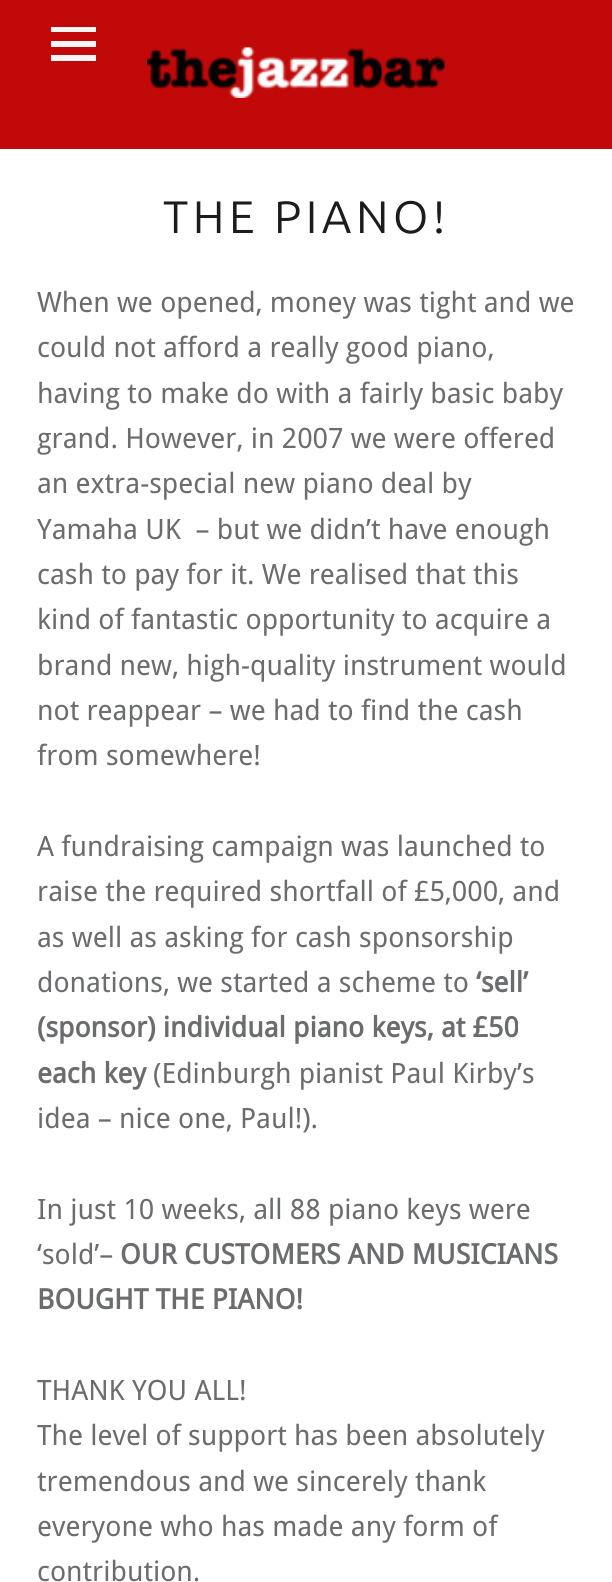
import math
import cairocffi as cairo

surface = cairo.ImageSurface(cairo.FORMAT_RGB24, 612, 1582)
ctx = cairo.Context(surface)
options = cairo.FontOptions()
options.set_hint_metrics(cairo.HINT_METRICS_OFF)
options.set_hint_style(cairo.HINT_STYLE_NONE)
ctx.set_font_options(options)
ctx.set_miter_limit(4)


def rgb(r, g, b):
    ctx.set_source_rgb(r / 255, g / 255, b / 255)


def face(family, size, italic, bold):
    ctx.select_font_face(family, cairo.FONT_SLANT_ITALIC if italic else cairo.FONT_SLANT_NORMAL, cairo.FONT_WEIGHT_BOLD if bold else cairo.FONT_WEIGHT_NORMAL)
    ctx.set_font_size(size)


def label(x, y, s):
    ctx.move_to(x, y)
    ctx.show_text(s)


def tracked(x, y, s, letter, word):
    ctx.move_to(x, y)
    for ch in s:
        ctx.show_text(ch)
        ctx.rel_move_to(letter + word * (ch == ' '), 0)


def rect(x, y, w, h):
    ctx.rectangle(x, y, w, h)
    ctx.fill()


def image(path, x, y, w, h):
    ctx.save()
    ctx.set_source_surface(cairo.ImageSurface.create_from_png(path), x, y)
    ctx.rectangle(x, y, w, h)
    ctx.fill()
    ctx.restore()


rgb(255, 255, 255)
ctx.paint()
rgb(193, 9, 9)
rect(0, 0, 612, 149)
rgb(246, 245, 245)
ctx.new_path()
ctx.move_to(51, 61)
ctx.line_to(51, 55)
ctx.line_to(96, 55)
ctx.line_to(96, 61)
ctx.close_path()
ctx.move_to(51, 27)
ctx.line_to(96, 27)
ctx.line_to(96, 32)
ctx.line_to(51, 32)
ctx.close_path()
ctx.move_to(51, 47)
ctx.line_to(51, 41)
ctx.line_to(96, 41)
ctx.line_to(96, 47)
ctx.close_path()
ctx.fill()
image('image0.png', 147, 46, 298, 52)
face('Ubuntu', 45.5, 0, 0)
rgb(26, 28, 30)
tracked(163, 233, 'THE PIANO!', 4.5, 0)
face('Droid Sans', 28, 0, 0)
rgb(106, 108, 110)
label(37, 312, 'When we opened, money was tight and we')
label(37, 357, 'could not afford a really good piano,')
label(37, 403, 'having to make do with a fairly basic baby')
label(37, 448, 'grand. However, in 2007 we were offered')
label(37, 493, 'an extra-special new piano deal by')
label(37, 539, 'Yamaha UK  – but we didn’t have enough')
label(37, 584, 'cash to pay for it. We realised that this')
label(37, 629, 'kind of fantastic opportunity to acquire a')
label(37, 675, 'brand new, high-quality instrument would')
label(37, 720, 'not reappear – we had to find the cash')
label(37, 765, 'from somewhere!')
label(37, 856, 'A fundraising campaign was launched to')
label(37, 901, 'raise the required shortfall of £5,000, and')
label(37, 947, 'as well as asking for cash sponsorship')
label(37, 992, 'donations, we started a scheme to')
face('Droid Sans', 28, 0, 1)
label(476, 992, '‘sell’')
label(37, 1037, '(sponsor) individual piano keys, at £50')
label(37, 1083, 'each key')
face('Droid Sans', 28, 0, 0)
label(153, 1083, '(Edinburgh pianist Paul Kirby’s')
label(37, 1128, 'idea – nice one, Paul!).')
label(37, 1219, 'In just 10 weeks, all 88 piano keys were')
label(37, 1264, '‘sold’–')
face('Droid Sans', 28, 0, 1)
label(120, 1264, 'OUR CUSTOMERS AND MUSICIANS')
label(37, 1309, 'BOUGHT THE PIANO!')
face('Droid Sans', 28, 0, 0)
label(37, 1400, 'THANK YOU ALL!')
label(37, 1445, 'The level of support has been absolutely')
label(37, 1491, 'tremendous and we sincerely thank')
label(37, 1536, 'everyone who has made any form of')
label(37, 1581, 'contribution.')
surface.write_to_png('render.png')
